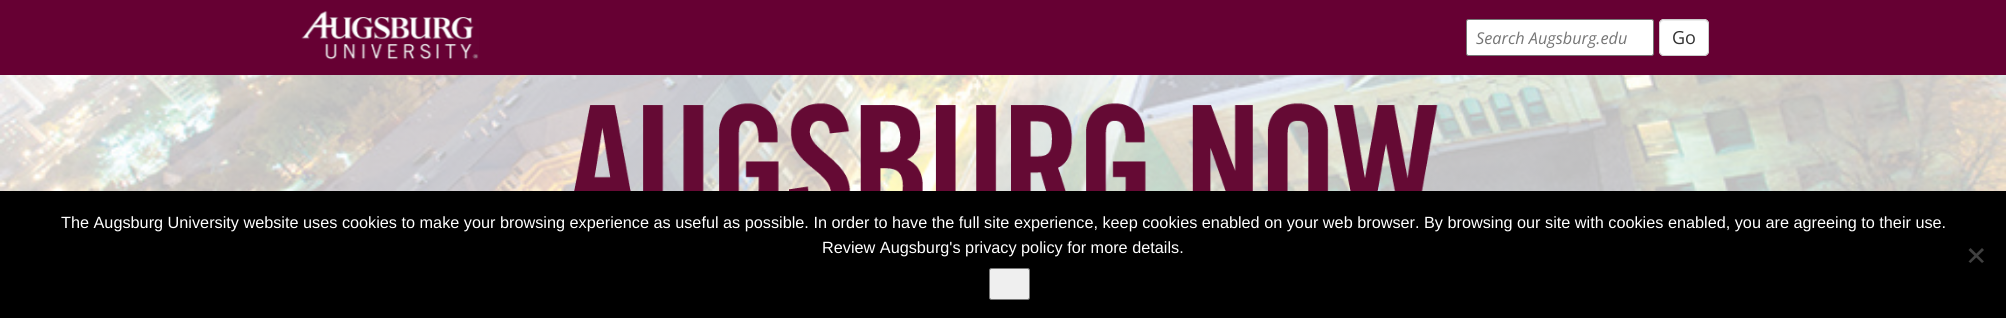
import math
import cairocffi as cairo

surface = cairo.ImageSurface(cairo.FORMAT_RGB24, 2006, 318)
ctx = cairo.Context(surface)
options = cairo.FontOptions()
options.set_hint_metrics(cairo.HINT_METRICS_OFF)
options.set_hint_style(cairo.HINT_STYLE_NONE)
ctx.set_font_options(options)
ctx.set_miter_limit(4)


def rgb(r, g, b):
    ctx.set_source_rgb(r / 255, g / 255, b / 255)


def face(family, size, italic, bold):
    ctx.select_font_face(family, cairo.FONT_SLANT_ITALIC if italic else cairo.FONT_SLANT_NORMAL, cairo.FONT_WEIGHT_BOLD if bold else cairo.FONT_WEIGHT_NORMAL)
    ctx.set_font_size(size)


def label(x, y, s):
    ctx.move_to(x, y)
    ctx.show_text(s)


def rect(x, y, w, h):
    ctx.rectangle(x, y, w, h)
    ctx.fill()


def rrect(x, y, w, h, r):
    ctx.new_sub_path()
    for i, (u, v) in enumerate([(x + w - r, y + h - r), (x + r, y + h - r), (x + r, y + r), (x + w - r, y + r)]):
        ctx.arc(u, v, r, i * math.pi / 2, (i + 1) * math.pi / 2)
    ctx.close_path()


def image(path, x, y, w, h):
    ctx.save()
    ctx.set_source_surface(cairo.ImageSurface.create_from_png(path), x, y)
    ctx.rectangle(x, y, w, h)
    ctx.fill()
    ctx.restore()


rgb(255, 255, 255)
ctx.paint()
rgb(102, 0, 51)
rect(0, 0, 2006, 75)
image('image0.png', 301, 10, 178, 50)
rgb(255, 255, 255)
rrect(1466.5, 19.5, 187, 36, 2)
ctx.fill_preserve()
rgb(118, 118, 118)
ctx.set_line_width(1)
ctx.stroke()
face('Open Sans', 16.25, 1, 0)
rgb(117, 117, 117)
label(1476, 44, 'Search Augsburg.edu')
rgb(255, 255, 255)
rrect(1659, 19, 50, 37, 5)
ctx.fill()
rgb(236, 236, 236)
ctx.new_path()
ctx.move_to(1664, 21)
ctx.line_to(1704, 21)
ctx.curve_to(1706, 21, 1708, 23, 1708, 25)
ctx.curve_to(1708, 19, 1702, 20, 1697, 20)
ctx.line_to(1671, 20)
ctx.curve_to(1666, 20, 1660, 19, 1660, 25)
ctx.curve_to(1660, 23, 1662, 21, 1664, 21)
ctx.close_path()
ctx.fill()
rrect(1659.5, 19.5, 49, 36, 4.5)
rgb(204, 204, 204)
ctx.stroke()
face('Open Sans', 18, 0, 0)
rgb(51, 51, 51)
label(1672, 44, 'Go')
image('image1.png', 0, 75, 2006, 116)
image('image2.png', 574, 103, 864, 88)
rgb(0, 0, 0)
rect(0, 191, 2006, 127)
face('Liberation Sans', 16.25, 0, 0)
rgb(255, 255, 255)
label(61, 228, 'The Augsburg University website uses cookies to make your browsing experience as useful as possible. In order to have the full site experience, keep cookies enabled on your web browser. By browsing our site with cookies enabled, you are agreeing to their use.')
label(822, 253, 'Review Augsburg\'s privacy policy for more details.')
rgb(64, 64, 64)
ctx.new_path()
ctx.move_to(1982, 248)
ctx.line_to(1984, 250)
ctx.line_to(1970.5, 263)
ctx.line_to(1968.5, 261.5)
ctx.close_path()
ctx.fill()
ctx.new_path()
ctx.move_to(1968.5, 250)
ctx.line_to(1970.5, 248)
ctx.line_to(1984, 261.5)
ctx.line_to(1982, 263)
ctx.close_path()
ctx.fill()
rgb(239, 239, 239)
rrect(989.5, 268.5, 40, 31, 2)
ctx.fill_preserve()
rgb(118, 118, 118)
ctx.stroke()
surface.write_to_png('render.png')
